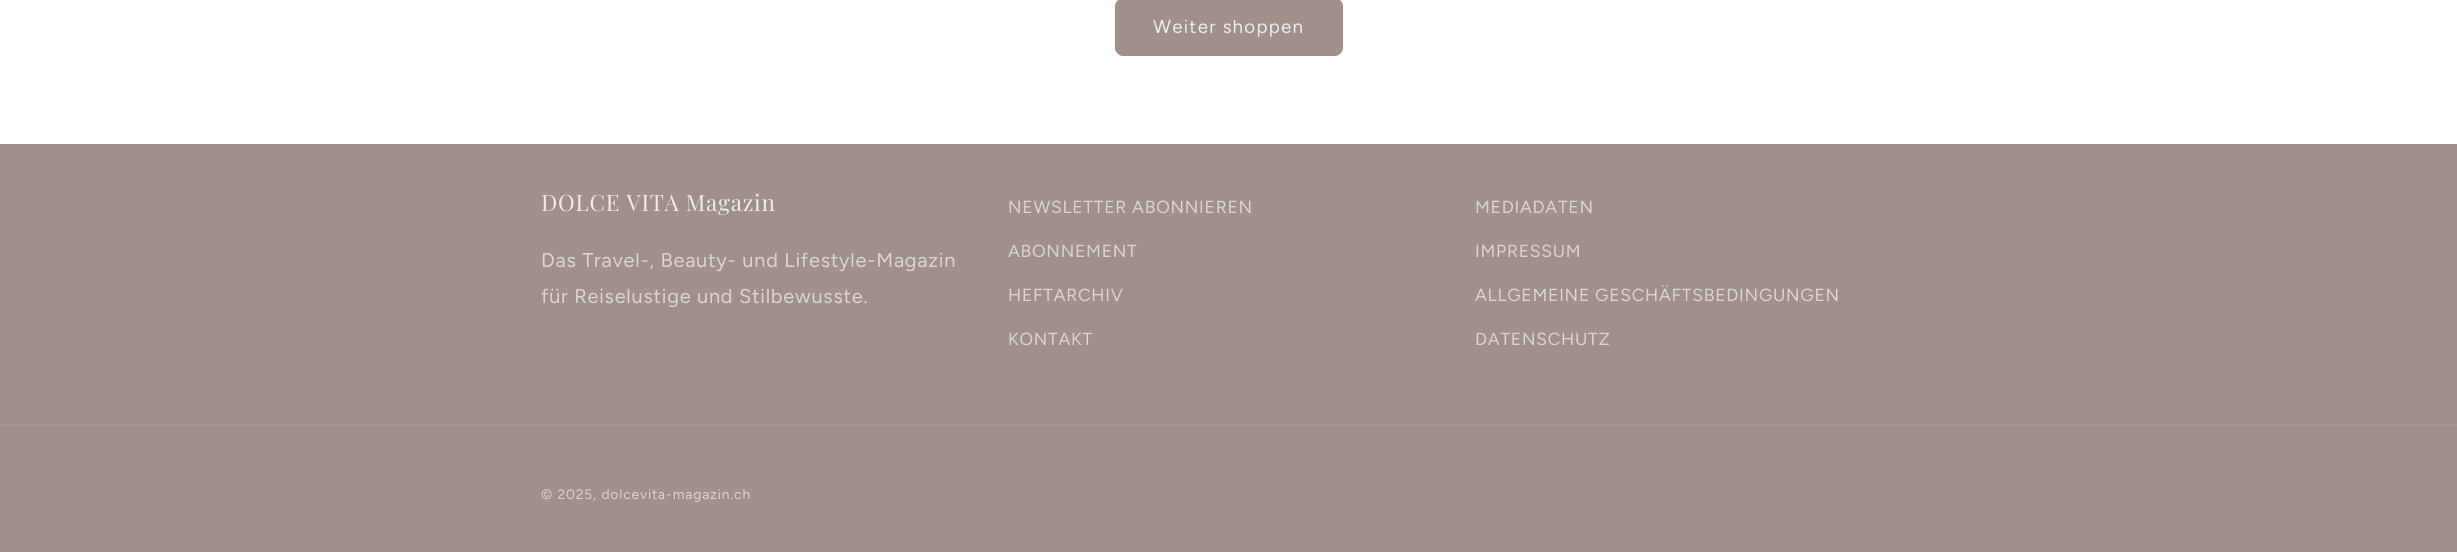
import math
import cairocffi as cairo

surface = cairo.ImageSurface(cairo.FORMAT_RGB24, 2457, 552)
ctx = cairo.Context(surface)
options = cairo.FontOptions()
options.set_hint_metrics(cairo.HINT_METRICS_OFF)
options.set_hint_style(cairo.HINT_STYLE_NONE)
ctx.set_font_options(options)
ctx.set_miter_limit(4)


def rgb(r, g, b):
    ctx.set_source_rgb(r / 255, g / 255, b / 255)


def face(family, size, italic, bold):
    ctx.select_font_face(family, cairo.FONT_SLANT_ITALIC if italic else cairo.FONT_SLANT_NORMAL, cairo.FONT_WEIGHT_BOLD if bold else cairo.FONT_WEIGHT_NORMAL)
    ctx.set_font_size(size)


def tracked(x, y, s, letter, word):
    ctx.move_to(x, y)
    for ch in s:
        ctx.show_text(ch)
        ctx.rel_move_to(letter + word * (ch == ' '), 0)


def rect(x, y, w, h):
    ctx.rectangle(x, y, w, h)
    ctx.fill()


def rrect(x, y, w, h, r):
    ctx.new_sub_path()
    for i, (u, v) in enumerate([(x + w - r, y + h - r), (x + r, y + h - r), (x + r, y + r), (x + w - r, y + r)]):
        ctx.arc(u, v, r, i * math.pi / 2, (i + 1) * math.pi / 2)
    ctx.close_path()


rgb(255, 255, 255)
ctx.paint()
rgb(159, 144, 139)
rrect(1115, -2, 228, 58, 9)
ctx.fill()
rrect(1115.5, -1.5, 227, 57, 8.5)
ctx.set_line_width(1)
ctx.stroke()
face('Figtree', 18.75, 0, 0)
rgb(239, 236, 236)
tracked(1153, 33, 'Weiter shoppen', 1.25, 0)
rgb(159, 144, 139)
rect(0, 144, 2457, 408)
face('Playfair Display', 22.5, 0, 0)
rgb(239, 236, 236)
tracked(541, 211, 'DOLCE VITA Magazin', 0.75, 0)
face('Figtree', 20, 0, 0)
rgb(219, 213, 212)
tracked(541, 267, 'Das Travel-, Beauty- und Lifestyle-Magazin', 0.75, 0)
tracked(541, 303, 'für Reiselustige und Stilbewusste.', 0.75, 0)
face('Figtree', 17.5, 0, 0)
tracked(1008, 213, 'NEWSLETTER ABONNIEREN', 0.75, 0)
tracked(1008, 257, 'ABONNEMENT', 0.75, 0)
tracked(1008, 301, 'HEFTARCHIV', 0.75, 0)
tracked(1008, 345, 'KONTAKT', 0.75, 0)
tracked(1475, 213, 'MEDIADATEN', 0.75, 0)
tracked(1475, 257, 'IMPRESSUM', 0.75, 0)
tracked(1475, 301, 'ALLGEMEINE GESCHÄFTSBEDINGUNGEN', 0.75, 0)
tracked(1475, 345, 'DATENSCHUTZ', 0.75, 0)
rgb(165, 151, 147)
rect(0, 424, 2457, 1)
face('Figtree', 13.75, 0, 0)
rgb(219, 213, 212)
tracked(541, 499, '© 2025, dolcevita-magazin.ch', 0.9, 0)
surface.write_to_png('render.png')
